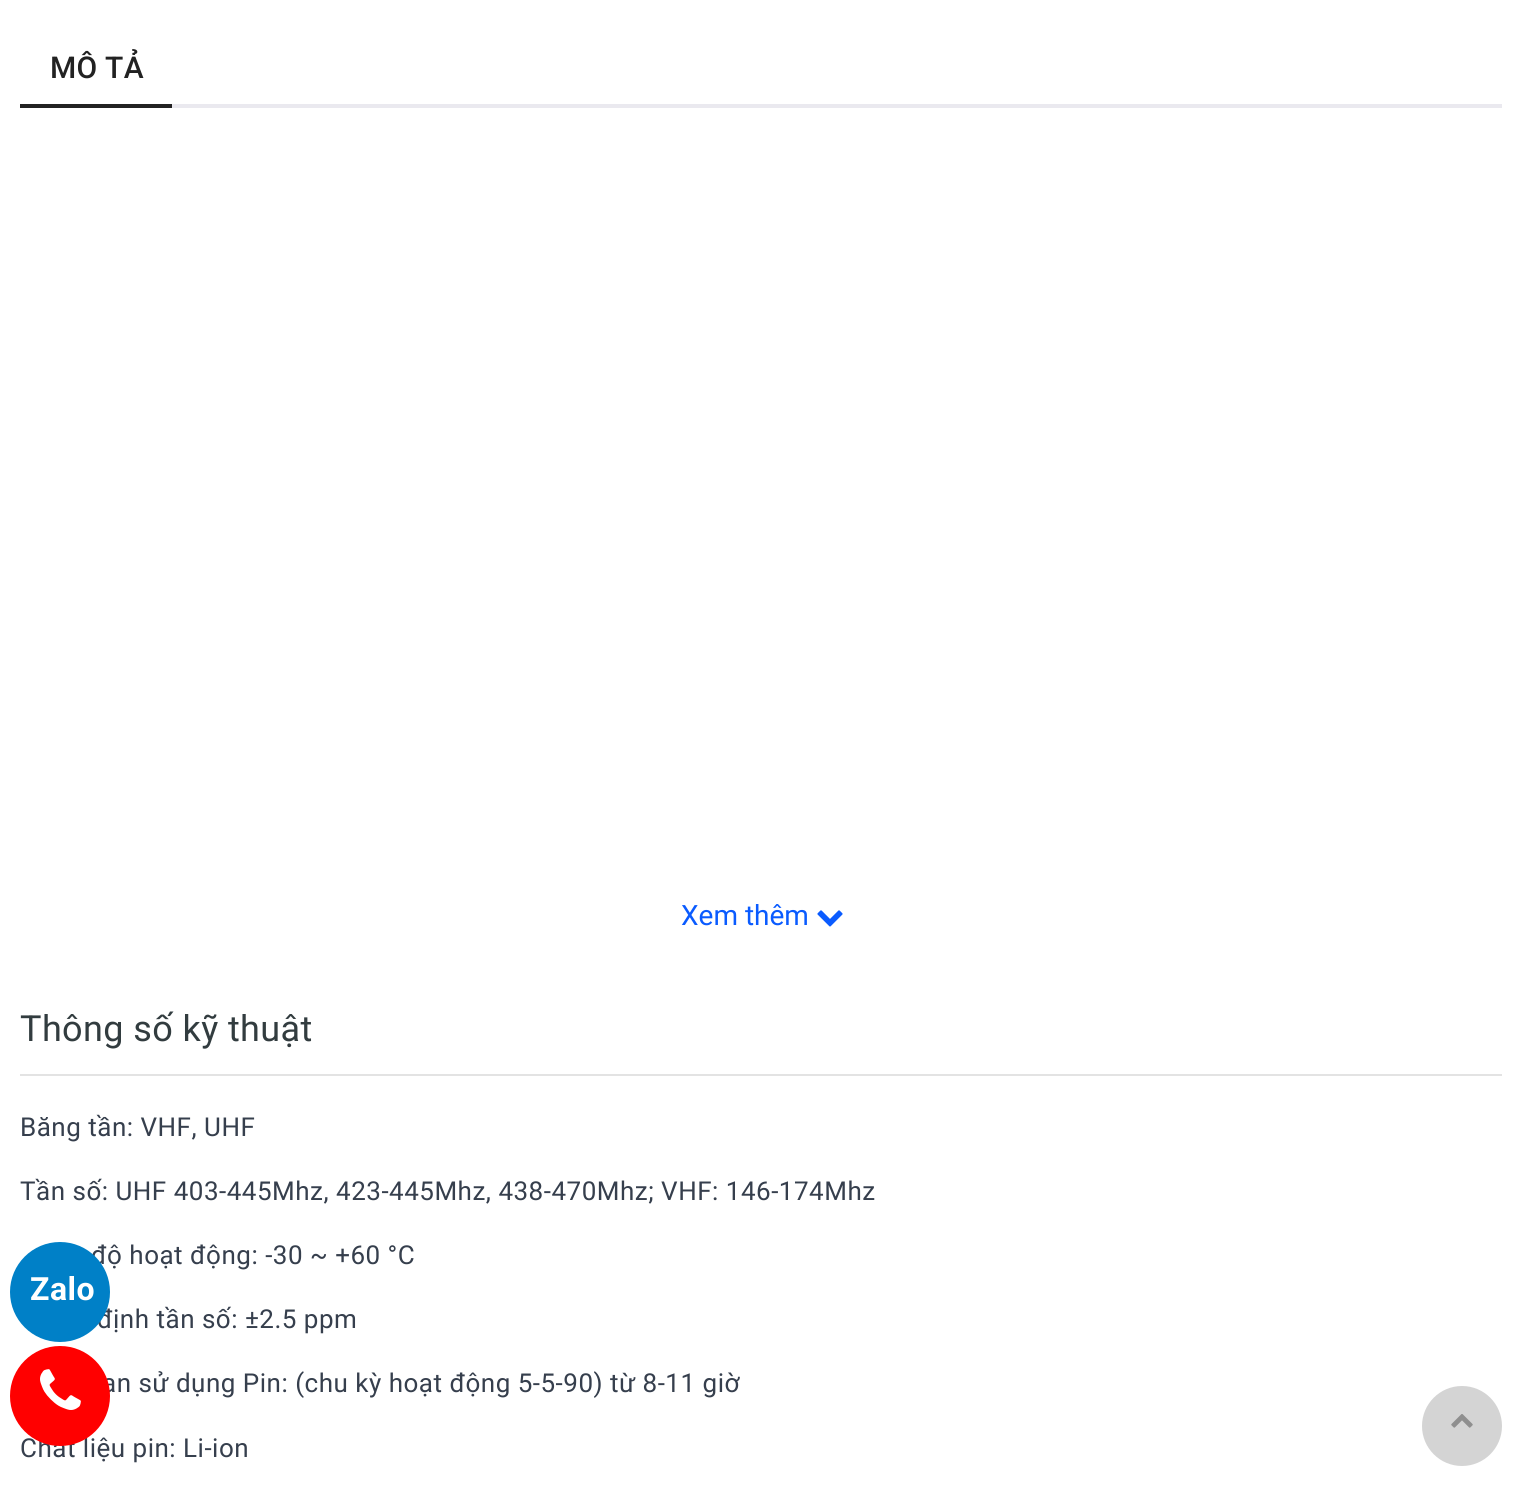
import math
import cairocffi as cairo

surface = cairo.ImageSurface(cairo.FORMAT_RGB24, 1522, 1485)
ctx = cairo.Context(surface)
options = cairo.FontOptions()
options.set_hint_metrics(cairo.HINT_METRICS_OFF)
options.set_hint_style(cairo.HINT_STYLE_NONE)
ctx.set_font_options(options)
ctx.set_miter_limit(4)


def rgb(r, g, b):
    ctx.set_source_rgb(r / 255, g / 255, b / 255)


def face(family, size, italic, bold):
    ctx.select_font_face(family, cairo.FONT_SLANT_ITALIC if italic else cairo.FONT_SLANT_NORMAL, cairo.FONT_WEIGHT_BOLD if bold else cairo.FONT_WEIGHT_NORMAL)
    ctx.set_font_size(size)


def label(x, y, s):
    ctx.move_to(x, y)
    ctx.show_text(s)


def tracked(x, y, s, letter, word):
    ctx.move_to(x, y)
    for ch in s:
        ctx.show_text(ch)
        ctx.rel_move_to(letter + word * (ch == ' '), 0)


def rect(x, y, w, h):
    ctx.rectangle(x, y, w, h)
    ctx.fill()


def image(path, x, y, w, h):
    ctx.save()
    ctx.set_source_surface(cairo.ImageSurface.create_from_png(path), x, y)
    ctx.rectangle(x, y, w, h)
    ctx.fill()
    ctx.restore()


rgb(255, 255, 255)
ctx.paint()
rgb(234, 233, 239)
rect(172, 104, 1330, 4)
face('Roboto Medium', 30, 0, 0)
rgb(34, 34, 34)
tracked(50, 78, 'MÔ TẢ', 0.25, 0)
rect(20, 104, 152, 4)
face('Roboto', 28, 0, 0)
rgb(10, 91, 255)
label(681, 925, 'Xem thêm')
image('image0.png', 817, 910, 26, 17)
rgb(227, 227, 227)
rect(20, 1074, 1482, 2)
face('Roboto', 36, 0, 0)
rgb(50, 60, 63)
tracked(20, 1041, 'Thông số kỹ thuật', 0.4, 0)
face('Roboto', 26, 0, 0)
rgb(54, 63, 77)
tracked(20, 1136, 'Băng tần: VHF, UHF', 0.5, 0)
tracked(20, 1200, 'Tần số: UHF 403-445Mhz, 423-445Mhz, 438-470Mhz; VHF: 146-174Mhz', 0.5, 0)
tracked(91, 1264, 'độ hoạt động: -30 ~ +60 °C', 0.5, 0)
tracked(97, 1328, 'định tần số: ±2.5 ppm', 0.5, 0)
tracked(102, 1392, 'an sử dụng Pin: (chu kỳ hoạt động 5-5-90) từ 8-11 giờ', 0.5, 0)
tracked(20, 1457, 'Chất liệu pin: Li-ion', 0.5, 0)
rgb(0, 128, 199)
ctx.new_path()
ctx.arc(60, 1292, 50, 0, 2 * math.pi)
ctx.fill()
face('Roboto', 32, 0, 1)
rgb(255, 255, 255)
tracked(30, 1300, 'Zalo', 0.5, 0)
rgb(255, 0, 0)
ctx.new_path()
ctx.arc(60, 1396, 50, 0, 2 * math.pi)
ctx.fill()
image('image1.png', 40, 1369, 41, 41)
rgb(212, 212, 212)
ctx.arc(1462, 1426, 40, 0, 2 * math.pi)
ctx.fill()
image('image2.png', 1451, 1414, 22, 14)
surface.write_to_png('render.png')
